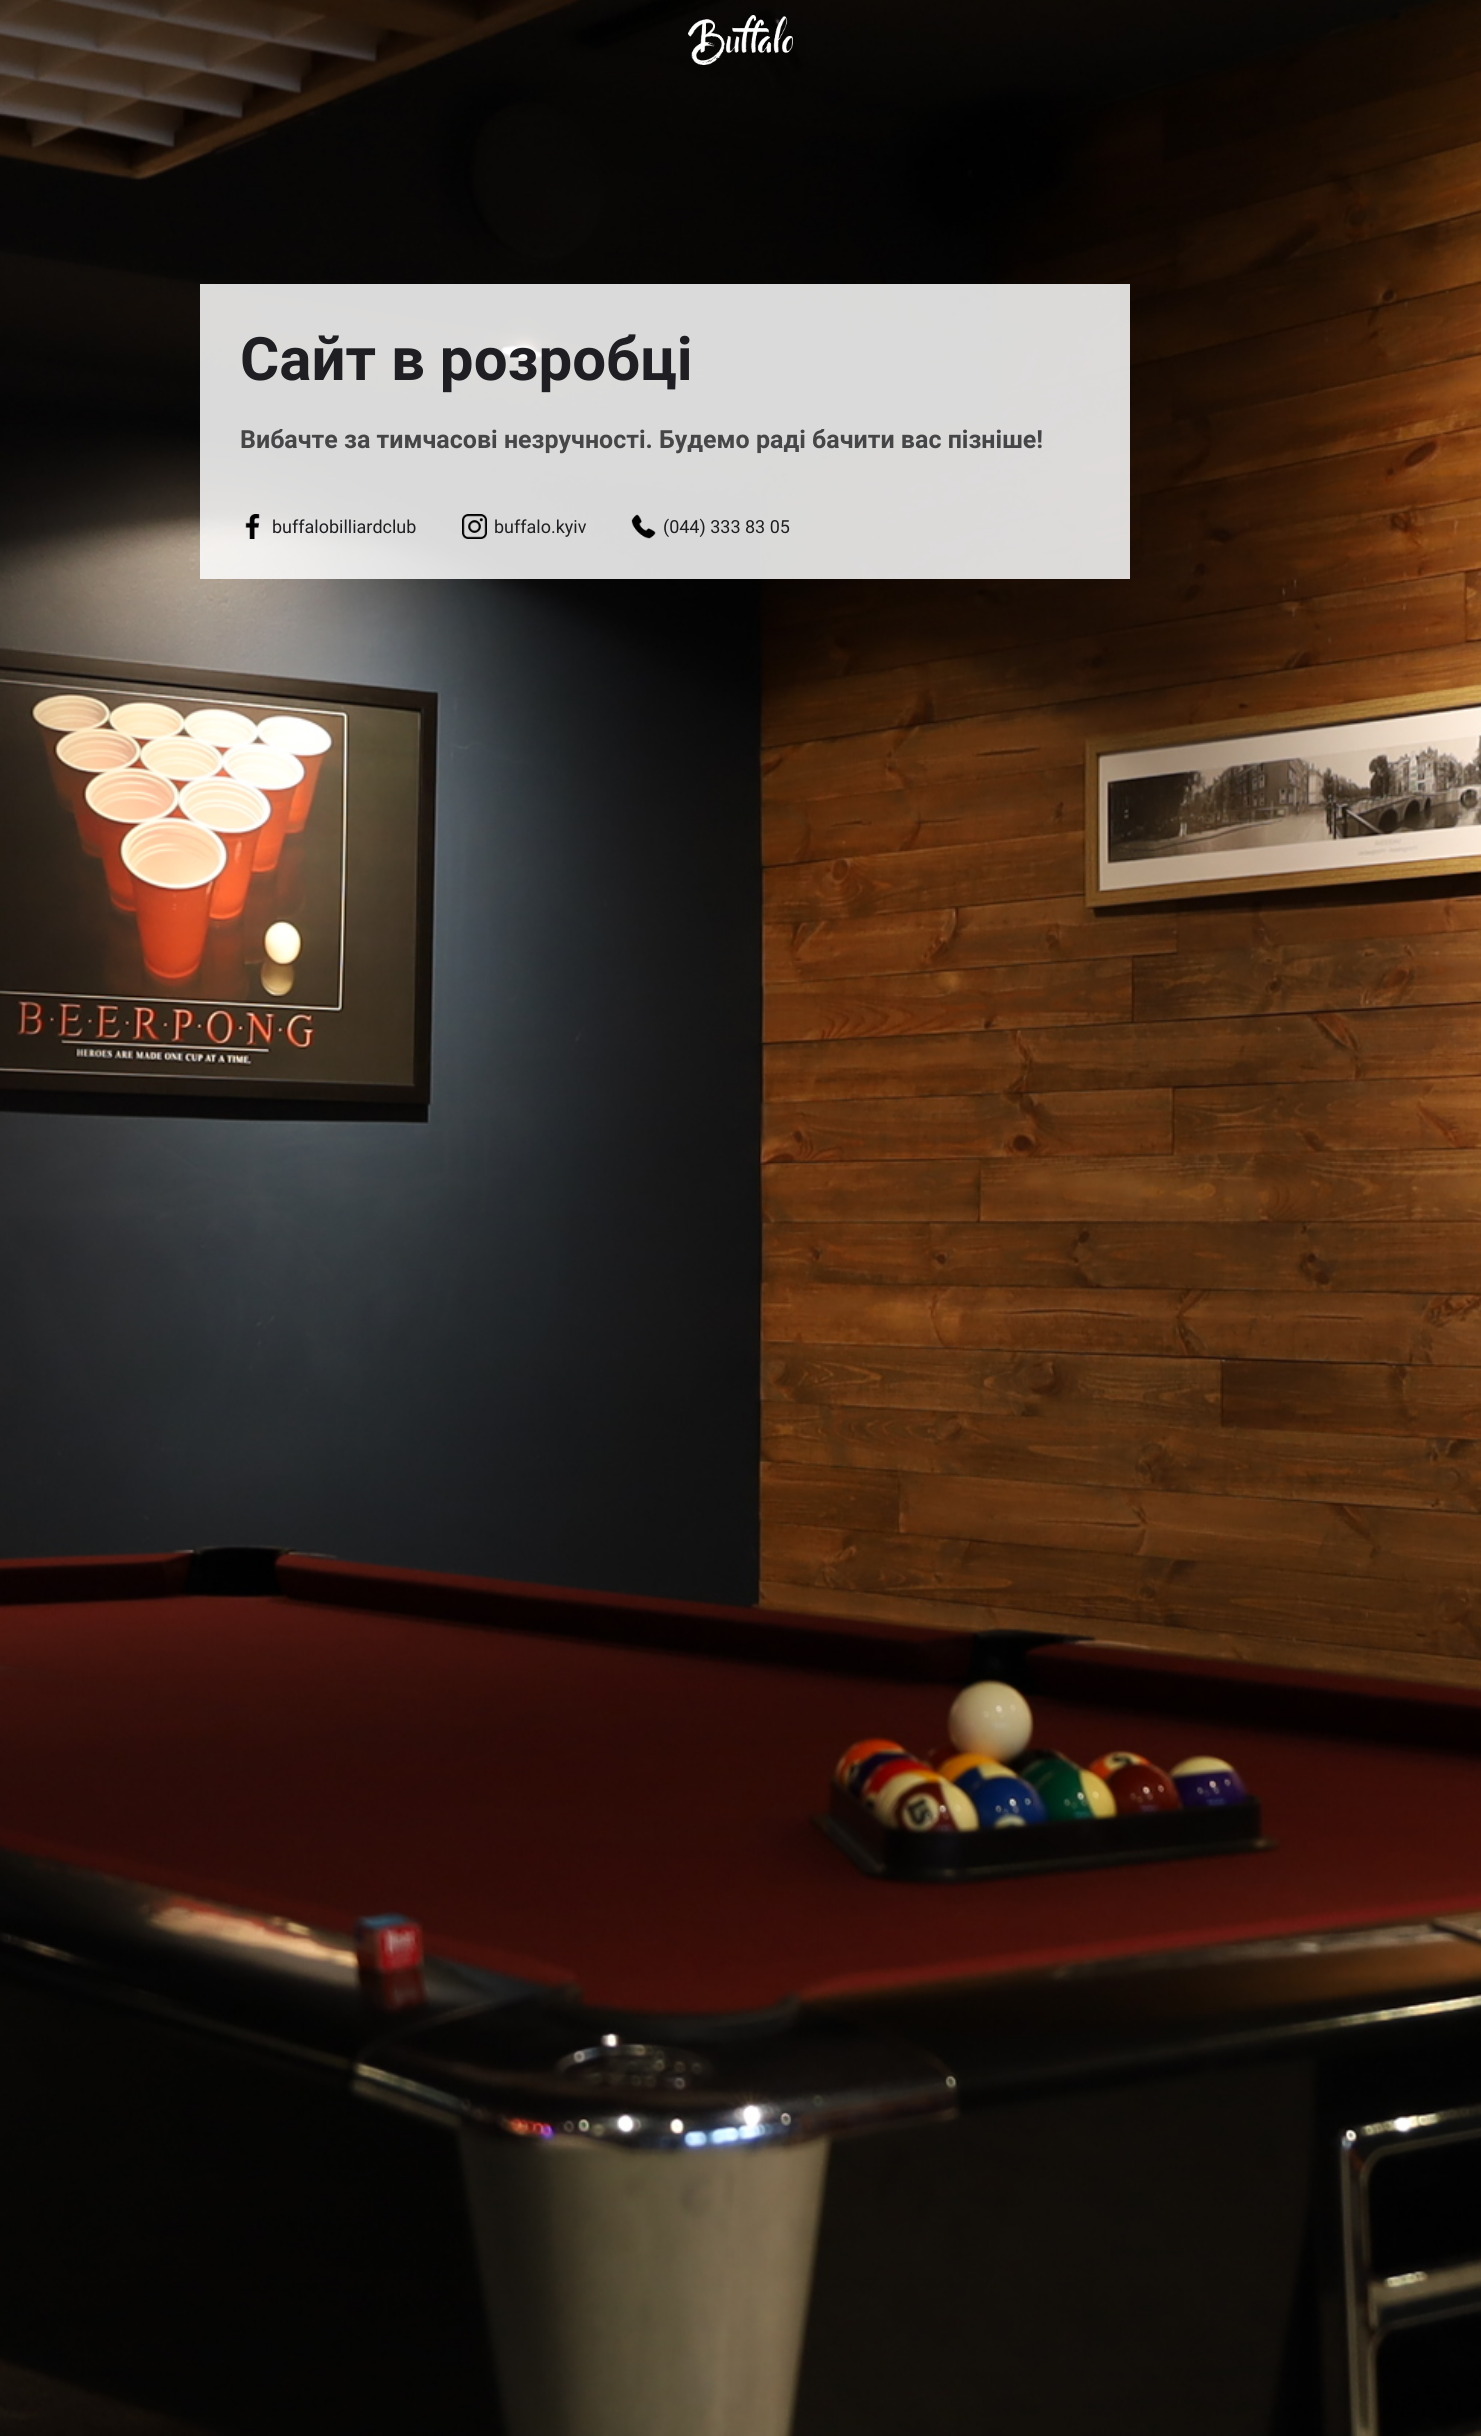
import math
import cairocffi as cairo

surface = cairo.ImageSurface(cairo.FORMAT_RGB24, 1481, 2436)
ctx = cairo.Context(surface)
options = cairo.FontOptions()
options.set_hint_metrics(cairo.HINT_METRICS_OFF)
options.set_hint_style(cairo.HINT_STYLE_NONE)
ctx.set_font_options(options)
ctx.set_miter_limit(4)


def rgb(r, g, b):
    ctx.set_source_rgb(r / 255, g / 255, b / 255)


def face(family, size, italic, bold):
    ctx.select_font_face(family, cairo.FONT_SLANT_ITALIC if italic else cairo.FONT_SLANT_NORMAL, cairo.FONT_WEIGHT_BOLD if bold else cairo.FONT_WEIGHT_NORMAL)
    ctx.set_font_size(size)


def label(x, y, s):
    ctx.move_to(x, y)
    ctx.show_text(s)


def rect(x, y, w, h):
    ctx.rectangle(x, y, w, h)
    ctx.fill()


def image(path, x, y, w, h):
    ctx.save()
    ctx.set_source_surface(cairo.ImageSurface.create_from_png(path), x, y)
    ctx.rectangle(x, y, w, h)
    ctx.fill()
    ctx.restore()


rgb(255, 255, 255)
ctx.paint()
image('image0.png', 0, 0, 1481, 2436)
image('image1.png', 688, 15, 105, 50)
ctx.set_source_rgba(1, 1, 1, 0.85)
rect(200, 284, 930, 295)
face('Roboto', 60, 0, 1)
rgb(31, 31, 35)
label(240, 380, 'Сайт в розробці')
face('Roboto', 25, 0, 1)
rgb(70, 70, 72)
label(240, 448, 'Вибачте за тимчасові незручності. Будемо раді бачити вас пізніше!')
image('image2.png', 245, 514, 15, 25)
face('Roboto', 18, 0, 0)
rgb(31, 31, 35)
label(272, 533, 'buffalobilliardclub')
image('image3.png', 462, 514, 25, 25)
label(494, 533, 'buffalo.kyiv')
image('image4.png', 631, 514, 25, 25)
label(663, 533, '(044) 333 83 05')
surface.write_to_png('render.png')
